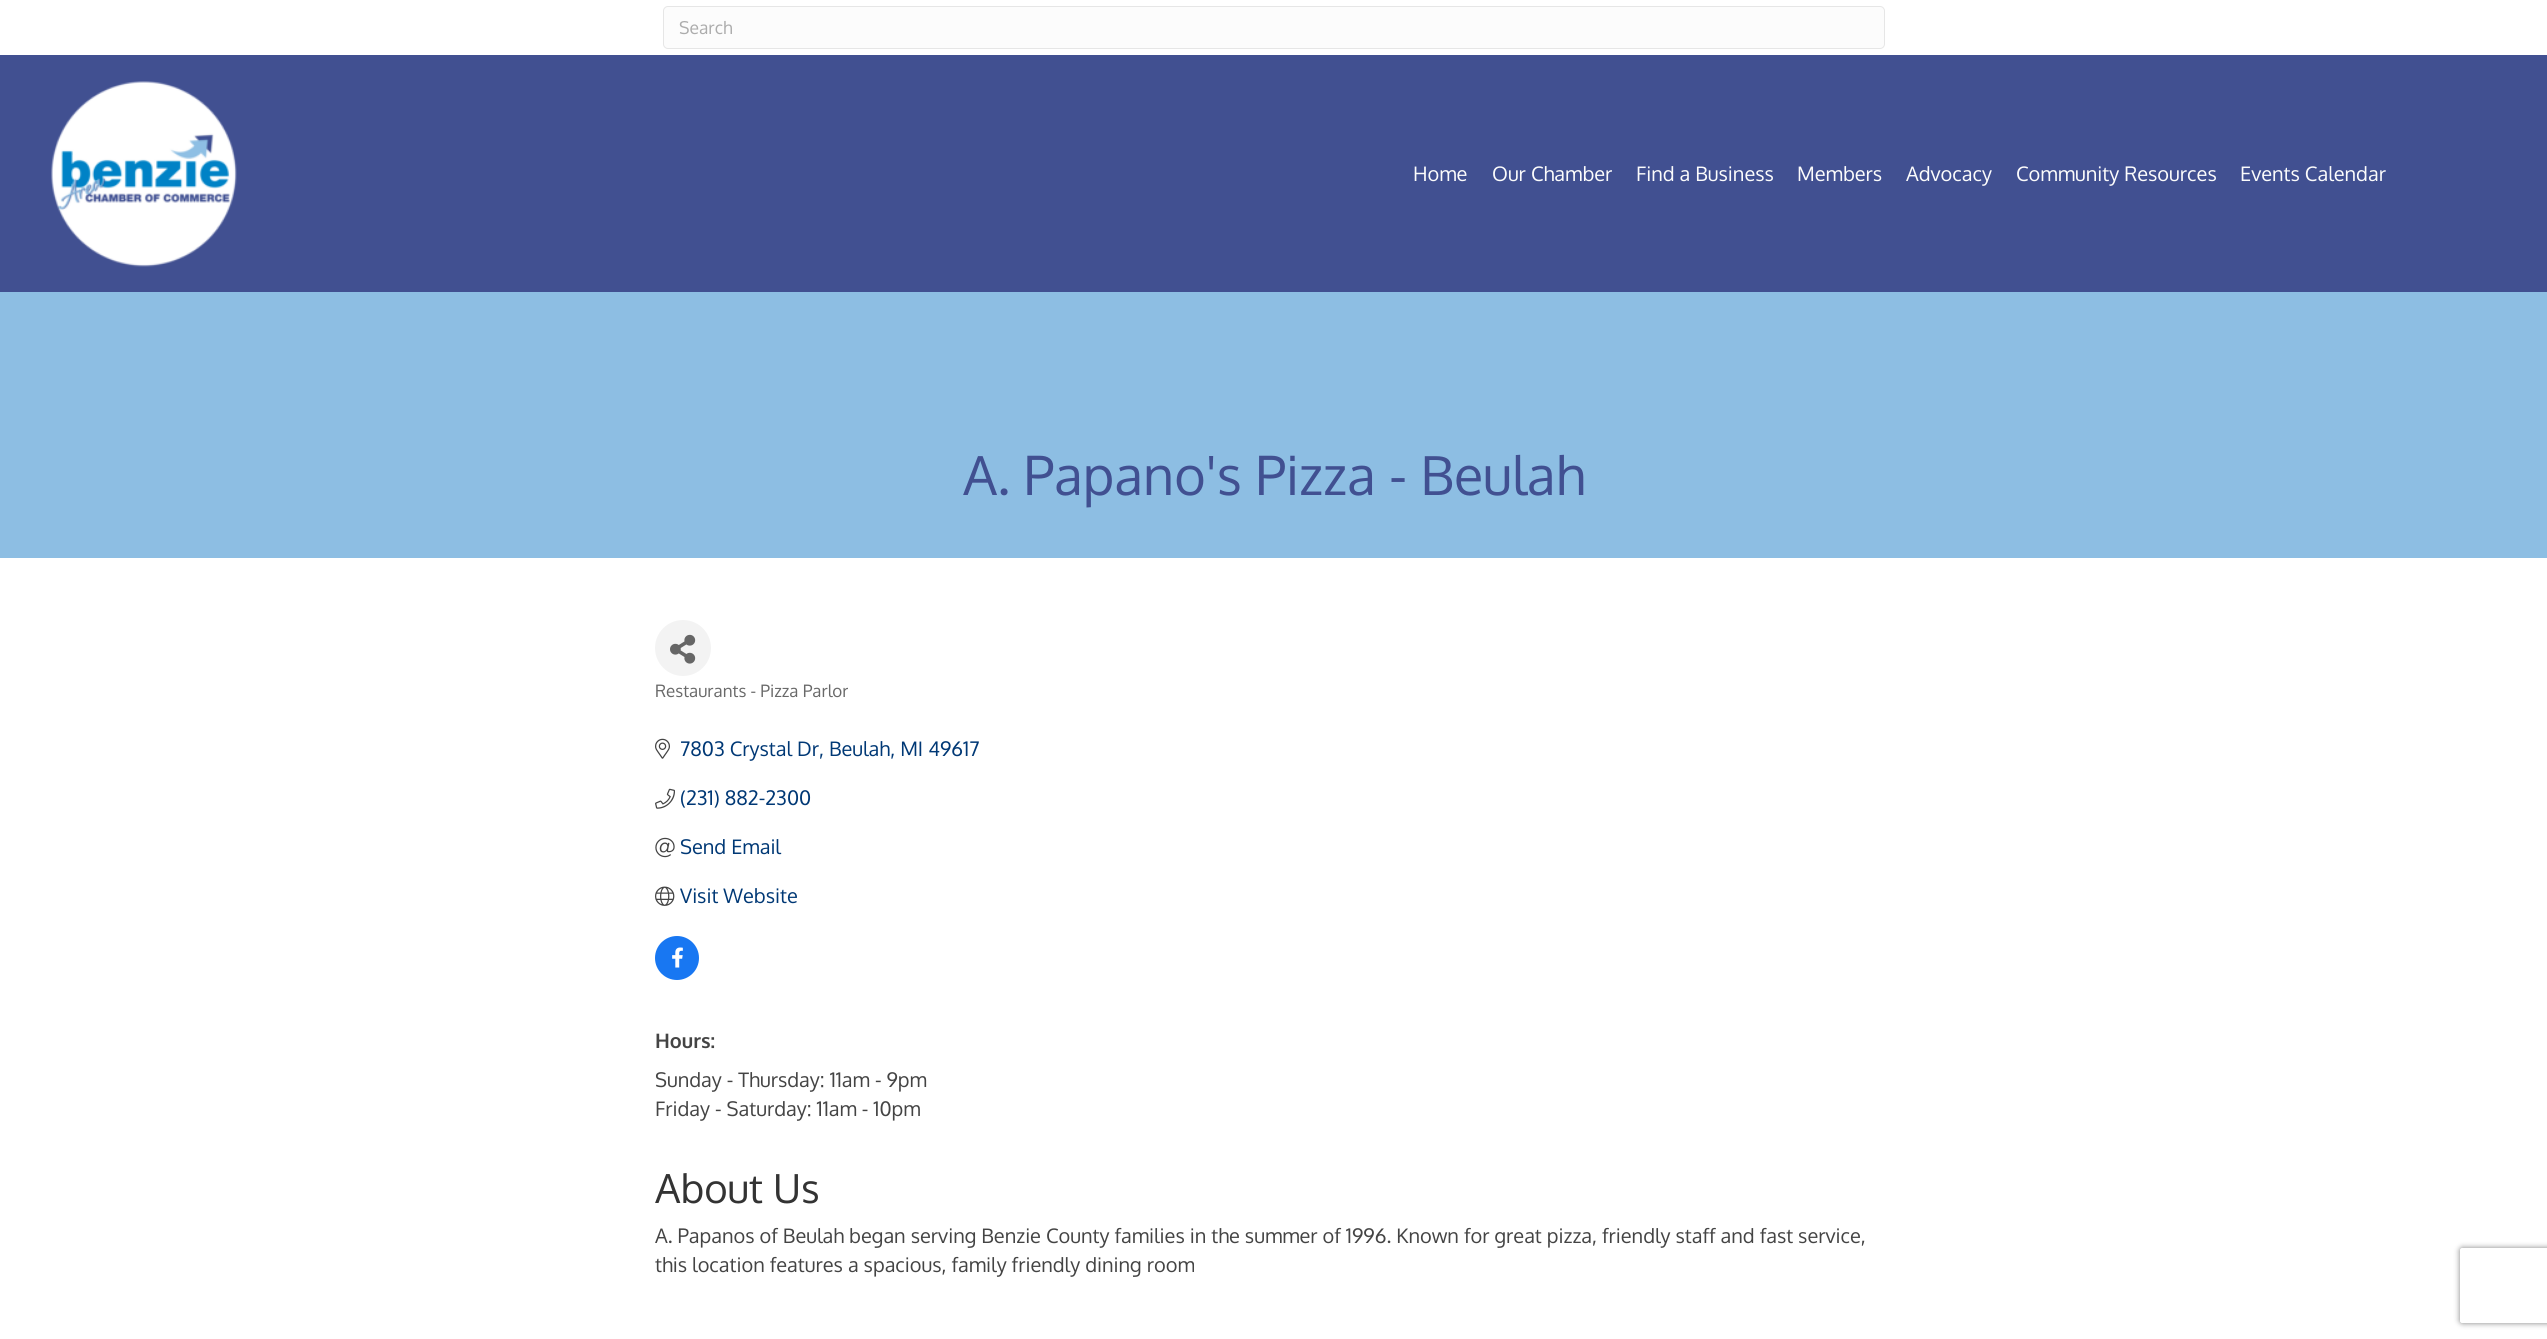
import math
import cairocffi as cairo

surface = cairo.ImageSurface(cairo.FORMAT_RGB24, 2547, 1339)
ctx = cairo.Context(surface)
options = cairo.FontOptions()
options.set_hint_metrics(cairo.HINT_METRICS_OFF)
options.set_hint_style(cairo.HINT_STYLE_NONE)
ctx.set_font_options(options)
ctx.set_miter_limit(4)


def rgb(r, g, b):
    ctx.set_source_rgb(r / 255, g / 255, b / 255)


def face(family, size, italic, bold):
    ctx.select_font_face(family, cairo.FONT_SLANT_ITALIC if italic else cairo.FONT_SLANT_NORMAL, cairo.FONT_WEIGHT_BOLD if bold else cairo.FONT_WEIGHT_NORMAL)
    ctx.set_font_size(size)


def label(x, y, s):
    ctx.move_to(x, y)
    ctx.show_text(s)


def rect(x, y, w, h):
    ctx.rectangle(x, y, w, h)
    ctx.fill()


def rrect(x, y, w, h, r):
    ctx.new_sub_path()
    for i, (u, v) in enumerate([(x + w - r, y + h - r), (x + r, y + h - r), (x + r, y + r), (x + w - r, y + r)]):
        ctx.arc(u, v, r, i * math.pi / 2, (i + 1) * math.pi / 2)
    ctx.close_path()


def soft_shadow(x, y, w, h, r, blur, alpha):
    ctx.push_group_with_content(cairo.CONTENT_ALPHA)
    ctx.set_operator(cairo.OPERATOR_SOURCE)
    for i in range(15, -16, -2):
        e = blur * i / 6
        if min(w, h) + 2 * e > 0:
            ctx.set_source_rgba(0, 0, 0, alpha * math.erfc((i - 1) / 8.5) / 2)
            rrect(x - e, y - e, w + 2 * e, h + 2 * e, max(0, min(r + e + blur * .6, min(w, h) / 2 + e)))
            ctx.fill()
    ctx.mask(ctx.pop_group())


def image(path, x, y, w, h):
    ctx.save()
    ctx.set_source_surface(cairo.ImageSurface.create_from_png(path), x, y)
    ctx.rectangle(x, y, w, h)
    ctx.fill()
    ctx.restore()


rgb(255, 255, 255)
ctx.paint()
rgb(252, 252, 252)
rrect(663.5, 6.5, 1221, 42, 4.5)
ctx.fill_preserve()
rgb(230, 230, 230)
ctx.set_line_width(1)
ctx.stroke()
face('Oxygen', 17.5, 0, 0)
rgb(172, 172, 172)
label(679, 34, 'Search')
rgb(65, 80, 145)
rect(0, 55, 2547, 237)
image('image0.png', 51, 81, 186, 186)
face('Oxygen', 20, 0, 0)
rgb(252, 252, 252)
label(1413, 181, 'Home')
label(1492, 181, 'Our Chamber')
label(1636, 181, 'Find a Business')
label(1797, 181, 'Members')
label(1906, 181, 'Advocacy')
label(2016, 181, 'Community Resources')
label(2240, 181, 'Events Calendar')
rgb(141, 190, 227)
rect(0, 292, 2547, 266)
face('Oxygen', 53.75, 0, 0)
rgb(65, 80, 145)
label(963, 495, 'A. Papano\'s Pizza - Beulah')
rgb(243, 243, 243)
ctx.new_path()
ctx.arc(683, 648, 28, 0, 2 * math.pi)
ctx.fill()
image('image1.png', 670, 634, 26, 30)
face('Oxygen', 17, 0, 0)
rgb(105, 105, 105)
label(655, 697, 'Restaurants - Pizza Parlor')
image('image2.png', 655, 738, 15, 21)
face('Oxygen', 20, 0, 0)
rgb(0, 56, 117)
label(680, 756, '7803 Crystal Dr, Beulah, MI 49617')
image('image3.png', 655, 788, 20, 21)
label(680, 805, '(231) 882-2300')
image('image4.png', 655, 837, 20, 21)
label(680, 854, 'Send Email')
image('image5.png', 655, 886, 20, 20)
label(680, 903, 'Visit Website')
rgb(24, 119, 242)
ctx.new_path()
ctx.arc(677, 958, 22, 0, 2 * math.pi)
ctx.fill()
image('image6.png', 672, 947, 11, 21)
face('Oxygen', 20, 0, 1)
rgb(68, 68, 68)
label(655, 1048, 'Hours:')
face('Oxygen', 20, 0, 0)
label(655, 1087, 'Sunday - Thursday: 11am - 9pm')
label(655, 1116, 'Friday - Saturday: 11am - 10pm')
face('Oxygen', 40, 0, 0)
rgb(51, 51, 51)
label(655, 1203, 'About Us')
face('Oxygen', 20, 0, 0)
rgb(68, 68, 68)
label(655, 1243, 'A. Papanos of Beulah began serving Benzie County families in the summer of 1996. Known for great pizza, friendly staff and fast service,')
label(655, 1272, 'this location features a spacious, family friendly dining room')
ctx.save()
ctx.set_fill_rule(cairo.FILL_RULE_EVEN_ODD)
ctx.new_path()
ctx.move_to(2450, 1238)
ctx.line_to(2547, 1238)
ctx.line_to(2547, 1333)
ctx.line_to(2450, 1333)
ctx.close_path()
ctx.move_to(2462.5, 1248)
ctx.line_to(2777.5, 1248)
ctx.curve_to(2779, 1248, 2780, 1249, 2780, 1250.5)
ctx.line_to(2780, 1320.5)
ctx.curve_to(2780, 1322, 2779, 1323, 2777.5, 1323)
ctx.line_to(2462.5, 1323)
ctx.curve_to(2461, 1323, 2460, 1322, 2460, 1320.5)
ctx.line_to(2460, 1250.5)
ctx.curve_to(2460, 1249, 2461, 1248, 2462.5, 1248)
ctx.close_path()
ctx.clip()
rgb(128, 128, 128)
soft_shadow(2460, 1248, 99, 75, 2.5, 3, 1)
ctx.restore()
surface.write_to_png('render.png')
